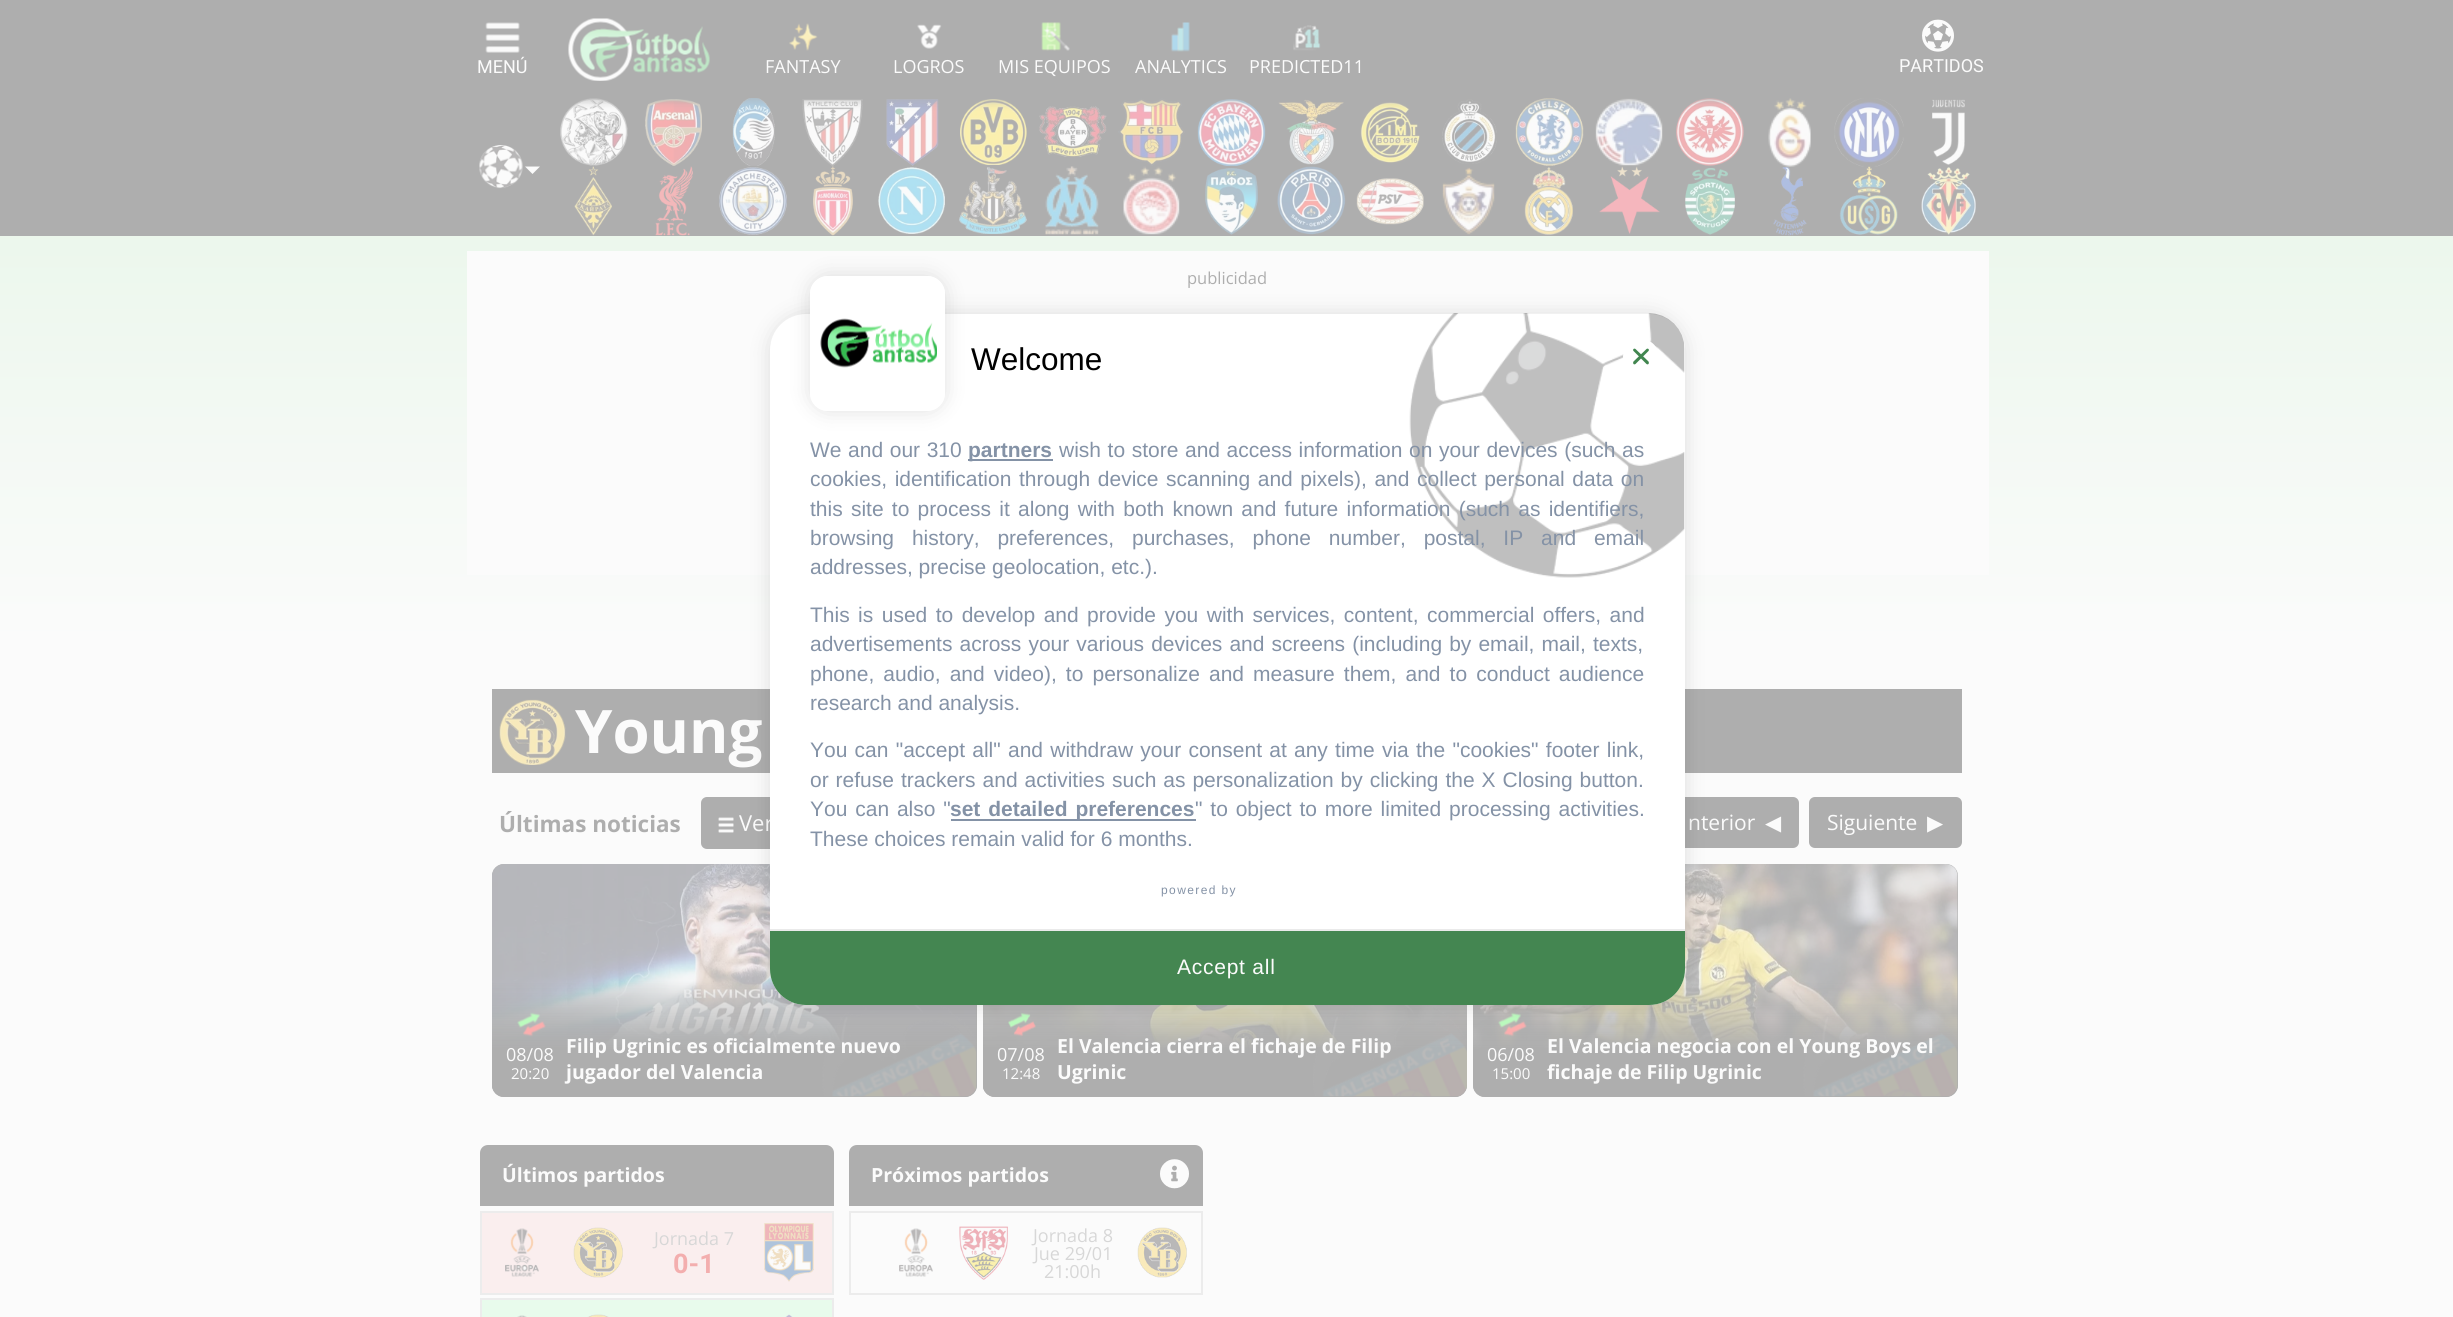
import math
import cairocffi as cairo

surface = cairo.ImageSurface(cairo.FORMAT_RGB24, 2453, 1317)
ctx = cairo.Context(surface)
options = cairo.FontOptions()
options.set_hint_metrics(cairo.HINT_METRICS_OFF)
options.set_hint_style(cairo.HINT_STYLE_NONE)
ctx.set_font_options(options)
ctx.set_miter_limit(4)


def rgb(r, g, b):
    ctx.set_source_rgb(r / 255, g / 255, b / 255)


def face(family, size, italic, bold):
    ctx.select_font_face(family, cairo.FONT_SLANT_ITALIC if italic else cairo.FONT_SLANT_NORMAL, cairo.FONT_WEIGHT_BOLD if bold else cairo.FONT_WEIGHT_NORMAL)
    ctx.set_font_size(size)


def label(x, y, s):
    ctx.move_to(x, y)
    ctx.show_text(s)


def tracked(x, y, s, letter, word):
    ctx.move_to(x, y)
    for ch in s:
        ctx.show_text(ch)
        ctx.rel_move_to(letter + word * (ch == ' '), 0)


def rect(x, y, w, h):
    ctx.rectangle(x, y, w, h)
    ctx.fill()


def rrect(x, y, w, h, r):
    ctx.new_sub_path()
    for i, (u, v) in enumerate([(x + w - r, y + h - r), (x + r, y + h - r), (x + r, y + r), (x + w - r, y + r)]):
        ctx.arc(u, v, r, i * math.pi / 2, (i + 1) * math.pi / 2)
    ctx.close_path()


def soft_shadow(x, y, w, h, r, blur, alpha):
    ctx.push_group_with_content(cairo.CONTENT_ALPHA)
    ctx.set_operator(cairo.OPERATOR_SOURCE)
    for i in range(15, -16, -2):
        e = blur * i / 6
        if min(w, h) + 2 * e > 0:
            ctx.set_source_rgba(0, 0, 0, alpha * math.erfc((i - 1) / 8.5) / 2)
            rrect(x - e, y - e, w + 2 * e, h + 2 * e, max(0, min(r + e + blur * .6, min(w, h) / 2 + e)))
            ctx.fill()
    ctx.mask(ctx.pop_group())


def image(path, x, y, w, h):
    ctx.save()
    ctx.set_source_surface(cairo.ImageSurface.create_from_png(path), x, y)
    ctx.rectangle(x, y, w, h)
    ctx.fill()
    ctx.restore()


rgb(255, 255, 255)
ctx.paint()
gradient = cairo.LinearGradient(1227, 0, 1227, 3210)
gradient.add_color_stop_rgba(0, 0.89, 0.961, 0.894, 1)
gradient.add_color_stop_rgba(0.2, 0.984, 0.984, 0.984, 1)
gradient.add_color_stop_rgba(1, 0.984, 0.984, 0.984, 1)
ctx.set_source(gradient)
rect(0, 236, 2453, 1081)
rgb(174, 174, 174)
rect(0, 98, 2453, 138)
image('image9.png', 560, 98, 68, 68)
image('image10.png', 645, 99, 57, 67)
image('image11.png', 732, 98, 43, 68)
image('image12.png', 802, 99, 61, 68)
image('image13.png', 886, 99, 53, 67)
image('image14.png', 960, 99, 67, 66)
image('image15.png', 1039, 106, 68, 51)
image('image16.png', 1118, 98, 67, 68)
image('image17.png', 1197, 99, 69, 67)
image('image18.png', 1278, 99, 66, 66)
image('image19.png', 1360, 102, 60, 61)
image('image20.png', 1442, 99, 55, 65)
image('image21.png', 1515, 98, 69, 68)
image('image22.png', 1595, 98, 68, 68)
image('image23.png', 1676, 98, 68, 68)
image('image24.png', 1768, 98, 43, 69)
image('image25.png', 1834, 98, 70, 69)
image('image26.png', 1930, 98, 36, 67)
rgb(174, 174, 174)
soft_shadow(0, 5, 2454, 97, 0, 4, 0.6)
rgb(174, 174, 174)
rect(0, 0, 2453, 98)
image('image0.png', 485, 22, 35, 31)
face('Roboto', 18, 0, 0)
rgb(251, 251, 251)
label(477, 73, 'MENÚ')
image('image1.png', 568, 18, 142, 63)
image('image2.png', 789, 23, 29, 28)
face('Open Sans', 18, 0, 0)
label(765, 73, 'FANTASY')
image('image3.png', 917, 24, 25, 25)
label(893, 73, 'LOGROS')
image('image4.png', 1041, 22, 29, 29)
label(998, 73, 'MIS EQUIPOS')
image('image5.png', 1171, 22, 19, 30)
label(1135, 73, 'ANALYTICS')
image('image6.png', 1293, 25, 28, 26)
label(1249, 73, 'PREDICTED11')
image('image7.png', 1922, 19, 32, 33)
face('Roboto', 18, 0, 0)
label(1899, 72, 'PARTIDOS')
image('image8.png', 479, 145, 44, 44)
ctx.new_path()
ctx.move_to(525, 166.5)
ctx.line_to(540, 166.5)
ctx.line_to(532.5, 174)
ctx.close_path()
ctx.fill()
image('image27.png', 574, 166, 38, 70)
image('image28.png', 655, 166, 38, 70)
image('image29.png', 719, 167, 68, 68)
image('image30.png', 813, 166, 40, 70)
image('image31.png', 878, 167, 67, 67)
image('image32.png', 959, 167, 68, 67)
image('image33.png', 1045, 166, 54, 69)
image('image34.png', 1123, 166, 57, 69)
image('image35.png', 1205, 168, 53, 67)
image('image36.png', 1277, 166, 69, 69)
image('image37.png', 1356, 178, 68, 47)
image('image38.png', 1442, 167, 53, 68)
image('image39.png', 1524, 167, 49, 68)
image('image40.png', 1599, 166, 61, 68)
image('image41.png', 1685, 168, 50, 67)
image('image42.png', 1773, 167, 34, 69)
image('image43.png', 1839, 166, 59, 69)
image('image44.png', 1921, 167, 55, 68)
rect(467, 251, 1522, 324)
face('Open Sans', 16.5, 0, 0)
rgb(174, 174, 174)
label(1187, 284, 'publicidad')
rect(492, 689, 1470, 84)
image('image45.png', 499, 699, 67, 66)
face('Open Sans', 60, 0, 1)
rgb(251, 251, 251)
label(575, 753, 'Young')
face('Open Sans', 22.5, 0, 1)
rgb(174, 174, 174)
label(499, 832, 'Últimas noticias')
rrect(701, 797, 151, 52, 6)
ctx.fill()
image('image46.png', 718, 817, 16, 16)
face('Open Sans', 22, 0, 0)
rgb(251, 251, 251)
label(739, 831, 'Ver')
rgb(174, 174, 174)
rrect(1656, 797, 143, 51, 6)
ctx.fill()
face('Open Sans', 21, 0, 0)
rgb(251, 251, 251)
label(1688, 830, 'nterior')
face('DejaVu Sans', 21, 0, 0)
label(1765, 830, '◀')
rgb(174, 174, 174)
rrect(1809, 797, 153, 51, 6)
ctx.fill()
face('Open Sans', 21, 0, 0)
rgb(251, 251, 251)
label(1827, 830, 'Siguiente')
face('DejaVu Sans', 21, 0, 0)
label(1927, 830, '▶')
rgb(174, 174, 174)
rrect(492, 864, 485, 233, 12)
ctx.fill()
image('image47.png', 492, 864, 485, 233)
gradient = cairo.LinearGradient(734, 1097, 734, 864)
gradient.add_color_stop_rgba(0, 0.682, 0.682, 0.682, 1)
gradient.add_color_stop_rgba(0.2, 0.682, 0.682, 0.682, 1)
gradient.add_color_stop_rgba(0.42, 0.682, 0.682, 0.682, 0.3)
gradient.add_color_stop_rgba(0.5, 0.682, 0.682, 0.682, 0)
ctx.set_source(gradient)
rrect(492, 864, 485, 233, 12)
ctx.fill()
image('image48.png', 822, 1005, 155, 92)
image('image49.png', 517, 1012, 29, 25)
face('Open Sans', 18, 0, 0)
rgb(251, 251, 251)
label(506, 1061, '08/08')
face('Open Sans', 15, 0, 0)
label(511, 1079, '20:20')
face('Open Sans', 19.5, 0, 1)
label(566, 1053, 'Filip Ugrinic es oficialmente nuevo')
label(566, 1079, 'jugador del Valencia')
rgb(174, 174, 174)
rrect(983, 864, 484, 233, 12)
ctx.fill()
image('image50.png', 983, 1005, 484, 92)
gradient = cairo.LinearGradient(1225, 1097, 1225, 864)
gradient.add_color_stop_rgba(0, 0.682, 0.682, 0.682, 1)
gradient.add_color_stop_rgba(0.2, 0.682, 0.682, 0.682, 1)
gradient.add_color_stop_rgba(0.42, 0.682, 0.682, 0.682, 0.3)
gradient.add_color_stop_rgba(0.5, 0.682, 0.682, 0.682, 0)
ctx.set_source(gradient)
rrect(983, 864, 484, 233, 12)
ctx.fill()
image('image51.png', 1313, 1005, 154, 92)
image('image52.png', 1008, 1012, 28, 25)
face('Open Sans', 18, 0, 0)
rgb(251, 251, 251)
label(997, 1061, '07/08')
face('Open Sans', 15, 0, 0)
label(1002, 1079, '12:48')
face('Open Sans', 19.5, 0, 1)
label(1057, 1053, 'El Valencia cierra el fichaje de Filip')
label(1057, 1079, 'Ugrinic')
rgb(174, 174, 174)
rrect(1473, 864, 485, 233, 12)
ctx.fill()
image('image53.png', 1473, 864, 485, 233)
gradient = cairo.LinearGradient(1715, 1097, 1715, 864)
gradient.add_color_stop_rgba(0, 0.682, 0.682, 0.682, 1)
gradient.add_color_stop_rgba(0.2, 0.682, 0.682, 0.682, 1)
gradient.add_color_stop_rgba(0.42, 0.682, 0.682, 0.682, 0.3)
gradient.add_color_stop_rgba(0.5, 0.682, 0.682, 0.682, 0)
ctx.set_source(gradient)
rrect(1473, 864, 485, 233, 12)
ctx.fill()
image('image54.png', 1803, 1003, 155, 94)
image('image55.png', 1498, 1012, 29, 25)
face('Open Sans', 18, 0, 0)
rgb(251, 251, 251)
label(1487, 1061, '06/08')
face('Open Sans', 15, 0, 0)
label(1492, 1079, '15:00')
face('Open Sans', 19.5, 0, 1)
label(1547, 1053, 'El Valencia negocia con el Young Boys el')
label(1547, 1079, 'fichaje de Filip Ugrinic')
rgb(174, 174, 174)
ctx.new_path()
ctx.move_to(488, 1145)
ctx.line_to(826, 1145)
ctx.curve_to(830.5, 1145, 834, 1148.5, 834, 1153)
ctx.line_to(834, 1206)
ctx.line_to(480, 1206)
ctx.line_to(480, 1153)
ctx.curve_to(480, 1148.5, 483.5, 1145, 488, 1145)
ctx.close_path()
ctx.fill()
rgb(251, 251, 251)
label(502, 1182, 'Últimos partidos')
rgb(250, 238, 238)
ctx.rectangle(481, 1212, 352, 82)
ctx.fill_preserve()
rgb(236, 236, 236)
ctx.stroke()
image('image56.png', 505, 1228, 34, 49)
image('image57.png', 573, 1227, 50, 51)
face('Open Sans', 18, 0, 0)
rgb(215, 215, 215)
label(654, 1245, 'Jornada 7')
face('Roboto', 27, 0, 1)
rgb(243, 174, 174)
label(673, 1273, '0-1')
image('image58.png', 764, 1223, 50, 59)
rgb(232, 251, 236)
ctx.rectangle(481, 1299, 352, 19)
ctx.fill_preserve()
rgb(236, 236, 236)
ctx.stroke()
image('image59.png', 517, 1315, 10, 2)
image('image60.png', 587, 1314, 22, 3)
image('image61.png', 785, 1314, 8, 3)
rgb(174, 174, 174)
ctx.new_path()
ctx.move_to(857, 1145)
ctx.line_to(1195, 1145)
ctx.curve_to(1199.5, 1145, 1203, 1148.5, 1203, 1153)
ctx.line_to(1203, 1206)
ctx.line_to(849, 1206)
ctx.line_to(849, 1153)
ctx.curve_to(849, 1148.5, 852.5, 1145, 857, 1145)
ctx.close_path()
ctx.fill()
face('Open Sans', 19.5, 0, 1)
rgb(251, 251, 251)
label(871, 1182, 'Próximos partidos')
image('image62.png', 1160, 1159, 29, 30)
ctx.rectangle(850, 1212, 352, 82)
rgb(236, 236, 236)
ctx.stroke()
image('image63.png', 899, 1228, 34, 49)
image('image64.png', 959, 1226, 49, 54)
face('Open Sans', 18, 0, 0)
rgb(215, 215, 215)
label(1033, 1242, 'Jornada 8')
label(1034, 1260, 'Jue 29/01')
label(1044, 1278, '21:00h')
image('image65.png', 1137, 1227, 50, 51)
rgb(0, 0, 0)
soft_shadow(770, 314, 915, 691, 36, 11, 0.12)
rgb(255, 255, 255)
rrect(770, 314, 915, 691, 36)
ctx.fill()
rgb(0, 0, 0)
soft_shadow(810, 276, 135, 135, 18, 11, 0.12)
rgb(255, 255, 255)
rrect(810, 276, 135, 135, 18)
ctx.fill()
image('image66.png', 820, 318, 117, 50)
rrect(814, 280, 127, 127, 14)
ctx.set_line_width(8)
ctx.stroke()
image('image67.png', 1409, 313, 276, 265)
face('Liberation Sans', 31.5, 0, 0)
rgb(0, 0, 0)
label(971, 370, 'Welcome')
rgb(255, 255, 255)
ctx.new_path()
ctx.arc(1641, 357, 18, 0, 2 * math.pi)
ctx.fill()
rgb(65, 134, 79)
ctx.new_path()
ctx.move_to(1635.5, 349)
ctx.line_to(1648.5, 361.5)
ctx.curve_to(1649, 362.5, 1649, 363, 1648.5, 364)
ctx.curve_to(1648, 364.5, 1647, 364.5, 1646.5, 364)
ctx.line_to(1633.5, 351)
ctx.curve_to(1633, 350.5, 1633, 349.5, 1633.5, 349)
ctx.curve_to(1634, 348.5, 1635, 348.5, 1635.5, 349)
ctx.close_path()
ctx.fill()
ctx.new_path()
ctx.move_to(1633.5, 361.5)
ctx.line_to(1646.5, 349)
ctx.curve_to(1647, 348.5, 1648, 348.5, 1648.5, 349)
ctx.curve_to(1649, 349.5, 1649, 350.5, 1648.5, 351)
ctx.line_to(1635.5, 364)
ctx.curve_to(1635, 364.5, 1634, 364.5, 1633.5, 364)
ctx.curve_to(1633, 363, 1633, 362.5, 1633.5, 361.5)
ctx.close_path()
ctx.fill()
face('Liberation Sans', 21, 0, 0)
rgb(132, 146, 166)
tracked(810, 457, 'We and our 310', 0, 0.75)
rect(968, 459, 85, 2)
face('Liberation Sans', 21, 0, 1)
label(968, 457, 'partners')
face('Liberation Sans', 21, 0, 0)
tracked(1059, 457, 'wish to store and access information on your devices (such as', 0, 0.75)
tracked(810, 486, 'cookies, identification through device scanning and pixels), and collect personal data on', 0, 1.75)
tracked(810, 516, 'this site to process it along with both known and future information (such as identifiers,', 0, 2.4)
tracked(810, 545, 'browsing history, preferences, purchases, phone number, postal, IP and email', 0, 12)
label(810, 574, 'addresses, precise geolocation, etc.).')
tracked(810, 622, 'This is used to develop and provide you with services, content, commercial offers, and', 0, 2.6)
tracked(810, 651, 'advertisements across your various devices and screens (including by email, mail, texts,', 0, 1.25)
tracked(810, 681, 'phone, audio, and video), to personalize and measure them, and to conduct audience', 0, 3.25)
label(810, 710, 'research and analysis.')
tracked(810, 757, 'You can "accept all" and withdraw your consent at any time via the "cookies" footer link,', 0, 1.4)
tracked(810, 787, 'or refuse trackers and activities such as personalization by clicking the X Closing button.', 0, 1.1)
tracked(810, 816, 'You can also "', 0, 2)
rect(951, 819, 245, 2)
face('Liberation Sans', 21, 0, 1)
tracked(950, 816, 'set detailed preferences', 0, 2)
face('Liberation Sans', 21, 0, 0)
tracked(1195, 816, '" to object to more limited processing activities.', 0, 2)
label(810, 846, 'These choices remain valid for 6 months.')
face('Liberation Sans', 12, 0, 0)
tracked(1161, 894, 'powered by', 1.4, 0)
rgb(68, 134, 81)
ctx.new_path()
ctx.move_to(770, 929)
ctx.line_to(1685, 929)
ctx.line_to(1685, 969)
ctx.curve_to(1685, 989, 1669, 1005, 1649, 1005)
ctx.line_to(806, 1005)
ctx.curve_to(786, 1005, 770, 989, 770, 969)
ctx.close_path()
ctx.fill()
rgb(234, 234, 234)
rect(770, 929, 915, 2)
face('Liberation Sans', 21, 0, 0)
rgb(251, 251, 251)
tracked(1177, 974, 'Accept all', 0.75, 0)
surface.write_to_png('render.png')
